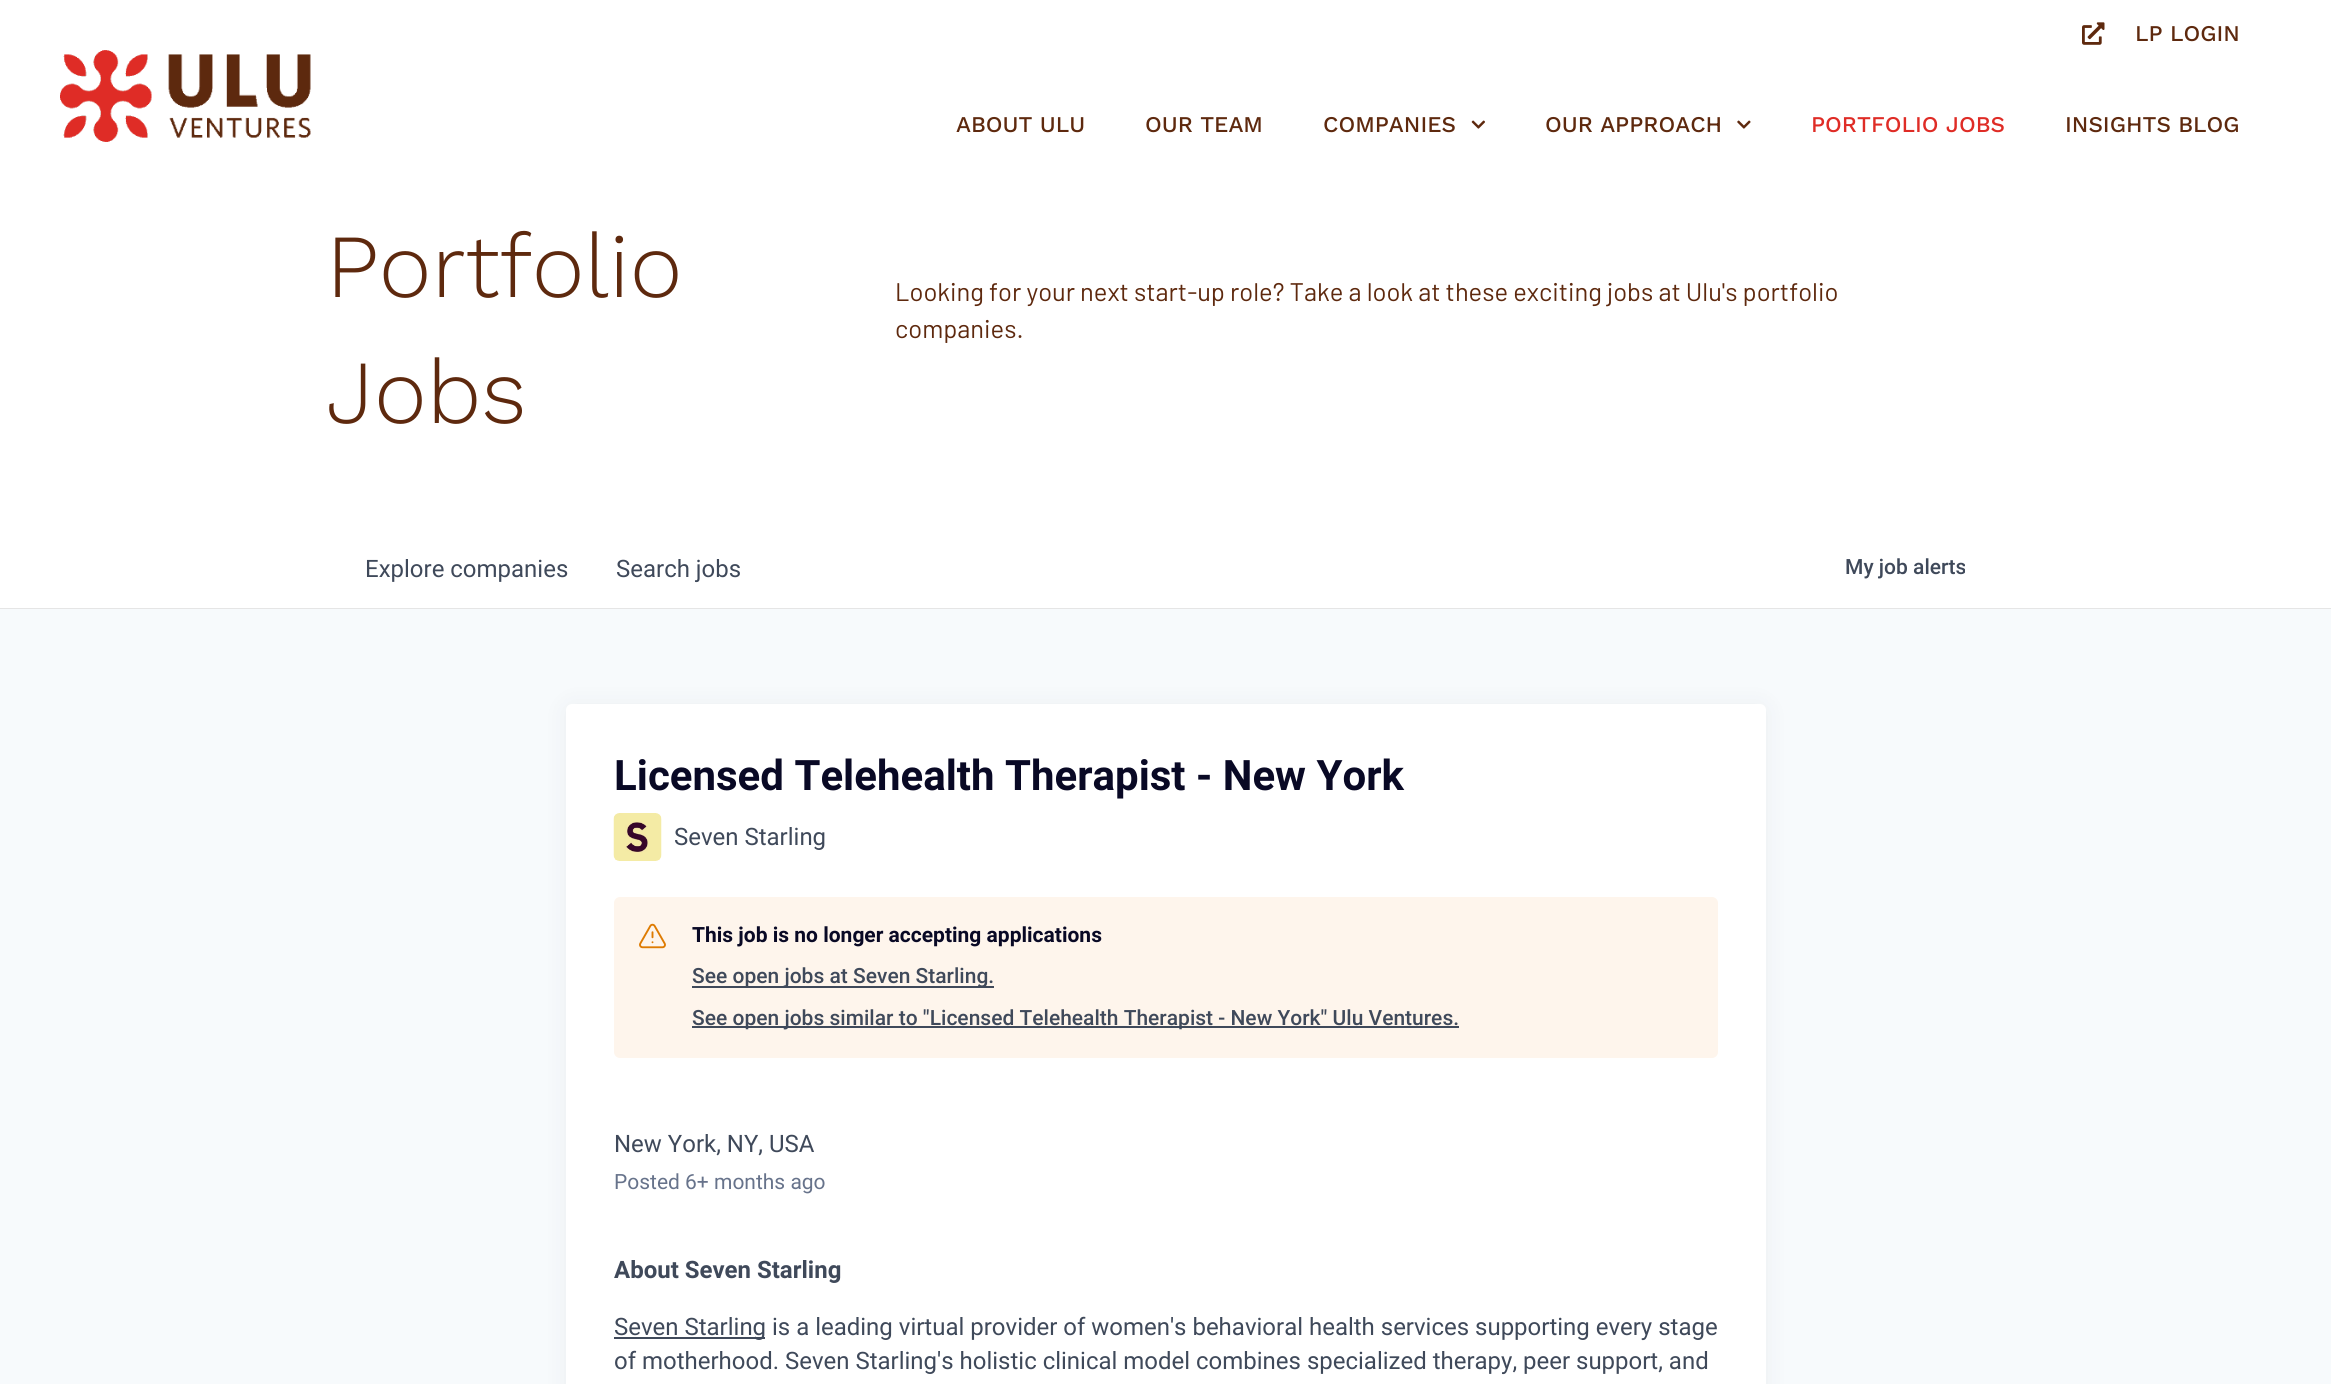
import math
import cairocffi as cairo

surface = cairo.ImageSurface(cairo.FORMAT_RGB24, 2331, 1384)
ctx = cairo.Context(surface)
options = cairo.FontOptions()
options.set_hint_metrics(cairo.HINT_METRICS_OFF)
options.set_hint_style(cairo.HINT_STYLE_NONE)
ctx.set_font_options(options)
ctx.set_miter_limit(4)


def rgb(r, g, b):
    ctx.set_source_rgb(r / 255, g / 255, b / 255)


def face(family, size, italic, bold):
    ctx.select_font_face(family, cairo.FONT_SLANT_ITALIC if italic else cairo.FONT_SLANT_NORMAL, cairo.FONT_WEIGHT_BOLD if bold else cairo.FONT_WEIGHT_NORMAL)
    ctx.set_font_size(size)


def label(x, y, s):
    ctx.move_to(x, y)
    ctx.show_text(s)


def rect(x, y, w, h):
    ctx.rectangle(x, y, w, h)
    ctx.fill()


def rrect(x, y, w, h, r):
    ctx.new_sub_path()
    for i, (u, v) in enumerate([(x + w - r, y + h - r), (x + r, y + h - r), (x + r, y + r), (x + w - r, y + r)]):
        ctx.arc(u, v, r, i * math.pi / 2, (i + 1) * math.pi / 2)
    ctx.close_path()


def soft_shadow(x, y, w, h, r, blur, alpha):
    ctx.push_group_with_content(cairo.CONTENT_ALPHA)
    ctx.set_operator(cairo.OPERATOR_SOURCE)
    for i in range(15, -16, -2):
        e = blur * i / 6
        if min(w, h) + 2 * e > 0:
            ctx.set_source_rgba(0, 0, 0, alpha * math.erfc((i - 1) / 8.5) / 2)
            rrect(x - e, y - e, w + 2 * e, h + 2 * e, max(0, min(r + e + blur * .6, min(w, h) / 2 + e)))
            ctx.fill()
    ctx.mask(ctx.pop_group())


def image(path, x, y, w, h):
    ctx.save()
    ctx.set_source_surface(cairo.ImageSurface.create_from_png(path), x, y)
    ctx.rectangle(x, y, w, h)
    ctx.fill()
    ctx.restore()


rgb(247, 250, 252)
ctx.paint()
rgb(255, 255, 255)
rect(0, 0, 2331, 608)
image('image0.png', 60, 50, 251, 92)
image('image1.png', 2082, 22, 23, 23)
face('Work Sans Medium', 22.5, 0, 0)
rgb(94, 41, 14)
label(2135, 41, 'LP LOGIN')
label(956, 132, 'ABOUT ULU')
label(1145, 132, 'OUR TEAM')
label(1323, 132, 'COMPANIES')
image('image2.png', 1471, 120, 14, 9)
label(1545, 132, 'OUR APPROACH')
image('image3.png', 1737, 120, 14, 9)
rgb(223, 44, 38)
label(1811, 132, 'PORTFOLIO JOBS')
rgb(94, 41, 14)
label(2065, 132, 'INSIGHTS BLOG')
face('Work Sans Light', 90, 0, 0)
label(326, 297, 'Portfolio')
label(326, 423, 'Jobs')
face('Barlow', 25.5, 0, 0)
label(895, 301, 'Looking for your next start-up role? Take a look at these exciting jobs at Ulu\'s portfolio')
label(895, 338, 'companies.')
rgb(229, 229, 229)
rect(0, 608, 2331, 1)
face('Roboto', 24, 0, 0)
rgb(63, 73, 90)
label(365, 577, 'Explore companies')
label(616, 577, 'Search jobs')
face('Roboto Medium', 21, 0, 0)
label(1845, 574, 'My job alerts')
rgb(27, 36, 50)
soft_shadow(566, 705, 1200, 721, 6, 12, 0.06)
rgb(255, 255, 255)
rrect(566, 704, 1200, 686, 6)
ctx.fill()
face('Roboto', 42, 0, 1)
rgb(9, 9, 37)
label(614, 790, 'Licensed Telehealth Therapist - New York')
image('image4.png', 613, 813, 49, 48)
face('Roboto', 24, 0, 0)
rgb(63, 73, 90)
label(674, 845, 'Seven Starling')
rgb(254, 245, 236)
rrect(614, 897, 1104, 161, 6)
ctx.fill()
image('image5.png', 639, 923, 27, 26)
face('Roboto', 21, 0, 1)
rgb(9, 9, 37)
label(692, 942, 'This job is no longer accepting applications')
rgb(63, 73, 90)
rect(692, 986, 302, 2)
face('Roboto Medium', 21, 0, 0)
label(692, 983, 'See open jobs at Seven Starling.')
rect(692, 1026, 628, 2)
label(692, 1025, 'See open jobs similar to "Licensed Telehealth Therapist - New York" Ulu Ventures.')
rect(1320, 1026, 139, 2)
face('Roboto', 24, 0, 0)
label(614, 1152, 'New York, NY, USA')
face('Roboto', 21, 0, 0)
rgb(103, 115, 139)
label(614, 1189, 'Posted 6+ months ago')
face('Roboto', 24, 0, 1)
rgb(63, 73, 90)
label(614, 1278, 'About Seven Starling')
rect(614, 1337, 151, 2)
face('Roboto', 24, 0, 0)
label(614, 1335, 'Seven Starling is a leading virtual provider of women\'s behavioral health services supporting every stage')
label(614, 1369, 'of motherhood. Seven Starling\'s holistic clinical model combines specialized therapy, peer support, and')
surface.write_to_png('render.png')
